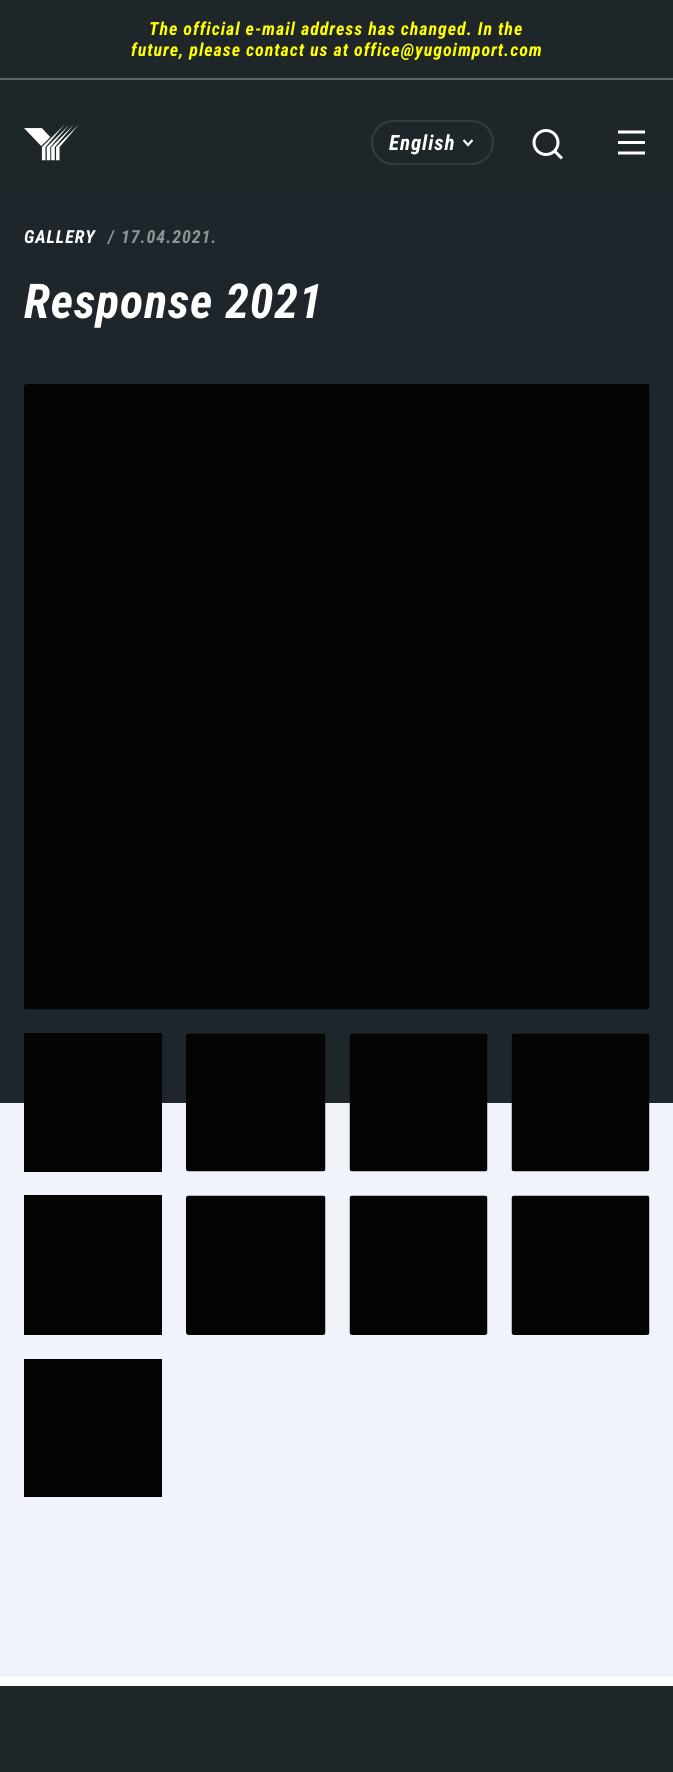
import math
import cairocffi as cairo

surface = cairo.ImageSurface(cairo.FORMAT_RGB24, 673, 1772)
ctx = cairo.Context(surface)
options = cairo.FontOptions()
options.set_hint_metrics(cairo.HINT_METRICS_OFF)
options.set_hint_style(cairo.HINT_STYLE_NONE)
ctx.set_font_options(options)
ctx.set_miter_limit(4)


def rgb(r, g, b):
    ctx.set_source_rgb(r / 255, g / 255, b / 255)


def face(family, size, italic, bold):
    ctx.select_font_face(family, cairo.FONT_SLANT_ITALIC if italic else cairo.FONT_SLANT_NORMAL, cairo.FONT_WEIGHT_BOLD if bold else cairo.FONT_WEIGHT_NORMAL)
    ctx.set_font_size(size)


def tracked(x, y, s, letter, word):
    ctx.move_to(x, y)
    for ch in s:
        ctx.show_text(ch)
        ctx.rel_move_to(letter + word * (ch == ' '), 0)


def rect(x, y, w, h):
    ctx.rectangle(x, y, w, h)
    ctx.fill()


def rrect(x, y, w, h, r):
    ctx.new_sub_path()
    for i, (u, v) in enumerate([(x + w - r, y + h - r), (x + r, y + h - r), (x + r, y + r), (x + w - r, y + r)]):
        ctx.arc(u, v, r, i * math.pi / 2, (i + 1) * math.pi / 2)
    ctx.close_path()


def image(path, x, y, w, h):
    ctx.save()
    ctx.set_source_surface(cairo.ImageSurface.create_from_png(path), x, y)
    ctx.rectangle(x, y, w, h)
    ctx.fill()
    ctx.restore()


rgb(240, 243, 249)
ctx.paint()
rgb(30, 38, 42)
rect(0, 0, 673, 185)
rgb(98, 103, 106)
rect(0, 78, 673, 2)
face('Roboto Condensed', 18, 1, 1)
rgb(255, 255, 0)
tracked(149, 35, 'The official e-mail address has changed. In the', 0.95, 0)
tracked(131, 56, 'future, please contact us at office@yugoimport.com', 0.95, 0)
image('image0.png', 24, 125, 54, 36)
ctx.new_path()
ctx.move_to(463.5, 140)
ctx.line_to(468, 145)
ctx.line_to(472.5, 140)
rgb(255, 255, 255)
ctx.set_line_width(2.2)
ctx.stroke()
rrect(372, 121, 121, 43, 21.5)
rgb(53, 60, 63)
ctx.set_line_width(2)
ctx.stroke()
face('Roboto Condensed', 21, 1, 1)
rgb(255, 255, 255)
tracked(389, 150, 'English', 0.95, 0)
image('image1.png', 532, 129, 31, 31)
image('image2.png', 618, 130, 27, 25)
rgb(30, 38, 43)
rect(0, 185, 673, 918)
face('Roboto Condensed', 18, 1, 1)
rgb(255, 255, 255)
tracked(24, 243, 'GALLERY', 0.95, 0)
rgb(143, 147, 149)
tracked(108, 243, '/', 0.95, 0)
tracked(121, 243, '17.04.2021.', 0.95, 0)
face('Roboto Condensed', 48, 1, 1)
rgb(255, 255, 255)
tracked(24, 318, 'Response 2021', 0.95, 0)
image('image3.png', 24, 384, 626, 626)
rgb(5, 4, 4)
rect(24, 1033, 138, 139)
image('image4.png', 186, 1033, 140, 139)
image('image5.png', 349, 1033, 139, 139)
image('image5.png', 511, 1033, 139, 139)
rect(24, 1195, 138, 140)
image('image6.png', 186, 1195, 140, 140)
image('image7.png', 349, 1195, 139, 140)
image('image7.png', 511, 1195, 139, 140)
rect(24, 1359, 138, 138)
rgb(30, 38, 42)
rect(0, 1686, 673, 86)
rgb(255, 255, 255)
rect(0, 1677, 673, 9)
surface.write_to_png('render.png')
